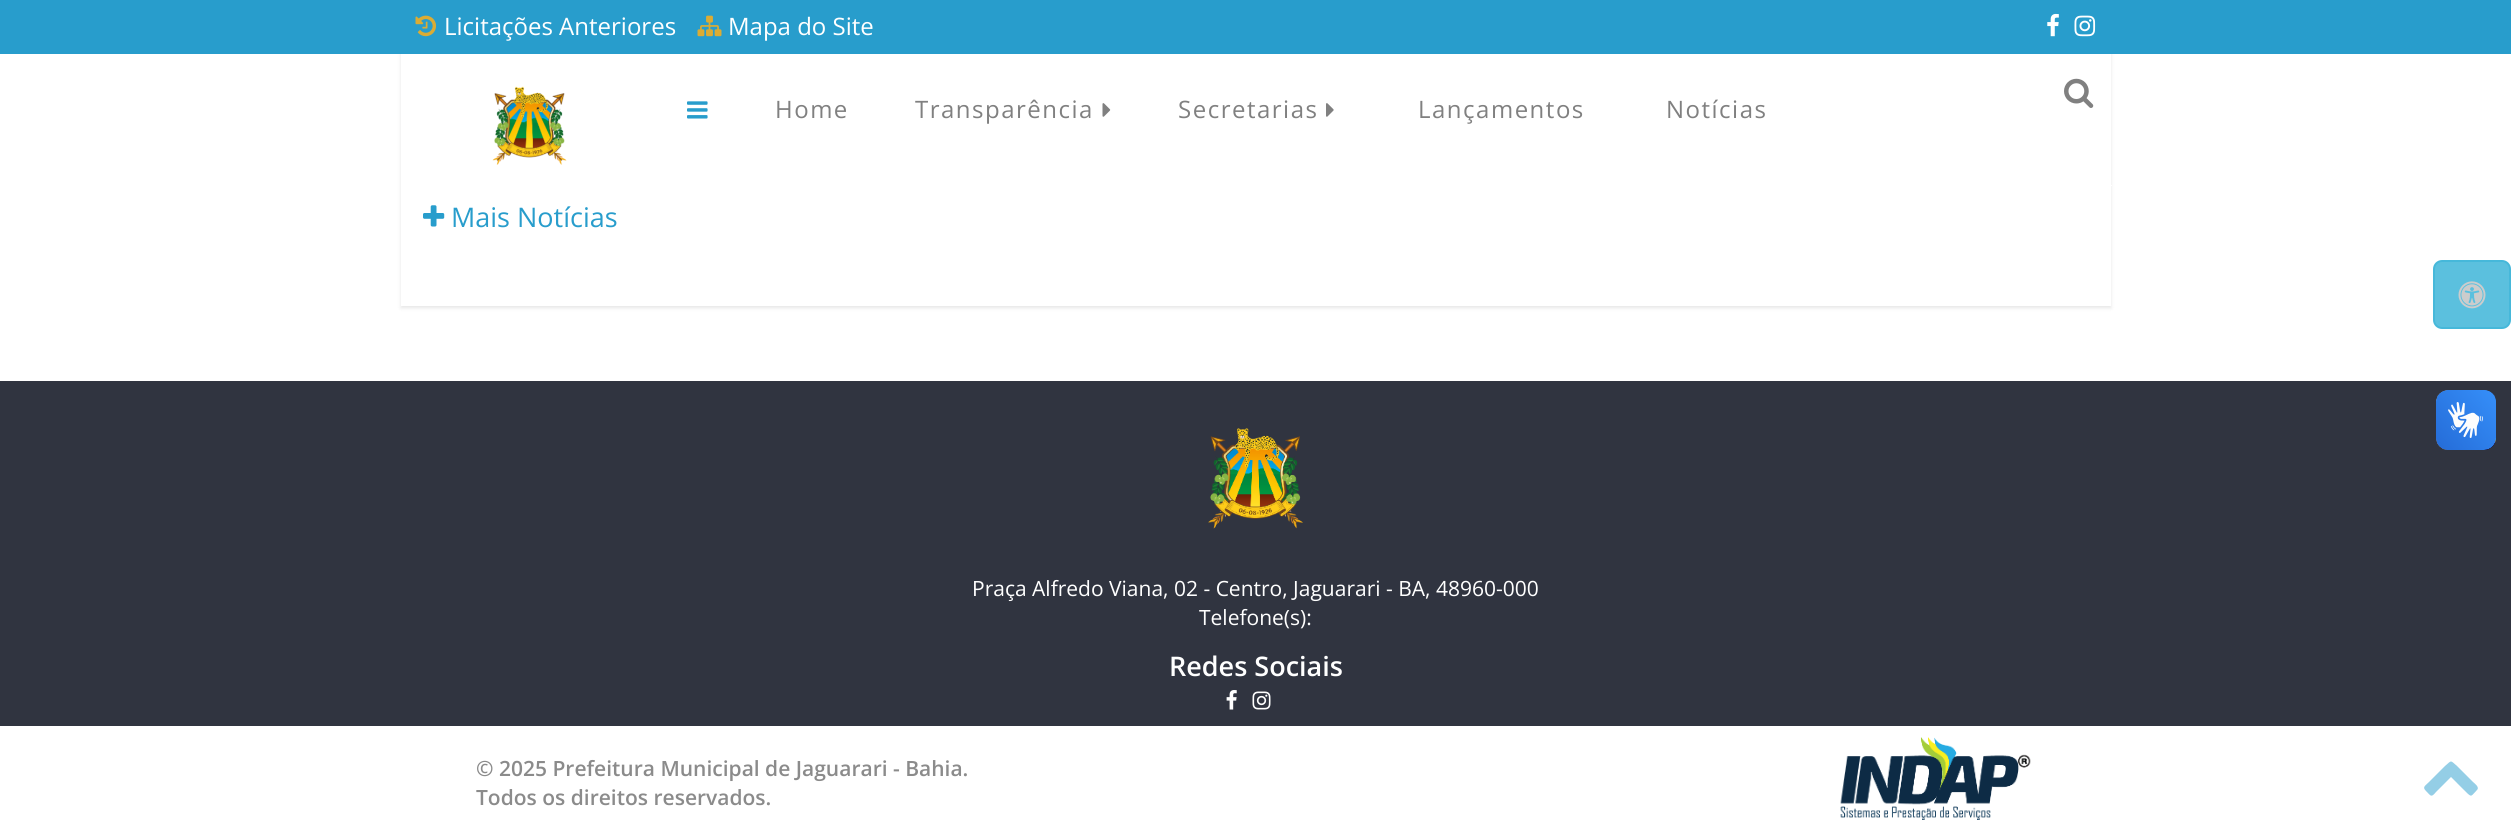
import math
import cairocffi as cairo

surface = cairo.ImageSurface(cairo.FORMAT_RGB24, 2511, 838)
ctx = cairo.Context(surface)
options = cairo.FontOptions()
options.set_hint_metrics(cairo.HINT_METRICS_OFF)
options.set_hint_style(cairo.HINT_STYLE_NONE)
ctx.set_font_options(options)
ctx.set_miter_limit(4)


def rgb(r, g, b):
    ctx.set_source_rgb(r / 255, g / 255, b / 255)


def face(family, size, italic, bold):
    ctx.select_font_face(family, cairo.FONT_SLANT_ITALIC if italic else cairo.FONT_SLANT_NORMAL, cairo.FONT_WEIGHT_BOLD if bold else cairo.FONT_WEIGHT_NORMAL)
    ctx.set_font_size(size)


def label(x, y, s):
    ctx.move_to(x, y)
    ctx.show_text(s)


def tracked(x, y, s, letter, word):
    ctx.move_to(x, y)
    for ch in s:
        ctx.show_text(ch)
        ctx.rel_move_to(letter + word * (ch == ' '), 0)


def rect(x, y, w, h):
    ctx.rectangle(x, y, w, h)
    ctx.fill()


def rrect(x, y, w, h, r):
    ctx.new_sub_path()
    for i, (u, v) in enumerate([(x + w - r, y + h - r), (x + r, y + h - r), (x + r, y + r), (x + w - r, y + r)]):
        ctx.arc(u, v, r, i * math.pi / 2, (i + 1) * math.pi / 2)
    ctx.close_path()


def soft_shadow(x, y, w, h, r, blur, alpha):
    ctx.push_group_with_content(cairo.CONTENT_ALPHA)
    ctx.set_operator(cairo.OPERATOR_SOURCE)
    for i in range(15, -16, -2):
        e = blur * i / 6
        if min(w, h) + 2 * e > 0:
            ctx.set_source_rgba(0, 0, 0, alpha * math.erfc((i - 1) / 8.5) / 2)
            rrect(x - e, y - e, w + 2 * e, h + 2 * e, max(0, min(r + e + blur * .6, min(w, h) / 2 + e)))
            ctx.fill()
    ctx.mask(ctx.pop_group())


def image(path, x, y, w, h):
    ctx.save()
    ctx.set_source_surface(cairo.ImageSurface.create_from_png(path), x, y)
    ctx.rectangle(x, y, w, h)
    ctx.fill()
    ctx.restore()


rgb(255, 255, 255)
ctx.paint()
soft_shadow(0, 2, 2511, 186, 0, 4.5, 1)
ctx.save()
ctx.set_fill_rule(cairo.FILL_RULE_EVEN_ODD)
ctx.new_path()
ctx.move_to(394, 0)
ctx.line_to(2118, 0)
ctx.line_to(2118, 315)
ctx.line_to(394, 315)
ctx.close_path()
ctx.move_to(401, -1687)
ctx.line_to(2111, -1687)
ctx.line_to(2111, 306)
ctx.line_to(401, 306)
ctx.close_path()
ctx.clip()
rgb(0, 0, 0)
soft_shadow(401, -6, 1710, 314, 0, 2, 0.1)
ctx.restore()
rgb(255, 255, 255)
rect(2111, 185, 1, 1)
rgb(40, 157, 204)
rect(0, 0, 2511, 54)
image('image0.png', 415, 15, 22, 22)
face('Open Sans', 24, 0, 0)
rgb(255, 255, 255)
label(444, 35, 'Licitações Anteriores')
image('image1.png', 697, 15, 25, 22)
label(728, 35, 'Mapa do Site')
image('image2.png', 2047, 13, 12, 24)
image('image3.png', 2074, 15, 22, 22)
image('image4.png', 492, 86, 75, 79)
image('image5.png', 687, 101, 21, 18)
rgb(128, 128, 128)
tracked(775, 118, 'Home', 1.5, 0)
tracked(915, 118, 'Transparência', 1.5, 0)
image('image6.png', 1102, 103, 9, 14)
tracked(1178, 118, 'Secretarias', 1.5, 0)
image('image7.png', 1326, 103, 8, 14)
tracked(1418, 118, 'Lançamentos', 1.5, 0)
tracked(1666, 118, 'Notícias', 1.5, 0)
image('image8.png', 2064, 78, 30, 30)
image('image9.png', 423, 205, 22, 22)
face('Open Sans', 27, 0, 0)
rgb(40, 157, 204)
label(451, 227, 'Mais Notícias')
rgb(48, 52, 64)
rect(0, 381, 2511, 345)
image('image10.png', 2436, 390, 60, 60)
image('image11.png', 2436, 390, 60, 60)
rgb(91, 192, 222)
rrect(2434, 261, 76, 67, 8)
ctx.fill_preserve()
rgb(70, 184, 218)
ctx.stroke()
image('image12.png', 2458, 281, 28, 28)
image('image13.png', 1208, 428, 95, 101)
face('Open Sans', 21, 0, 0)
rgb(255, 255, 255)
label(972, 596, 'Praça Alfredo Viana, 02 - Centro, Jaguarari - BA, 48960-000')
label(1199, 625, 'Telefone(s):')
face('Open Sans SemiBold', 27, 0, 0)
label(1169, 676, 'Redes Sociais')
image('image14.png', 1226, 690, 11, 20)
image('image15.png', 1252, 691, 19, 19)
face('Open Sans SemiBold', 21, 0, 0)
rgb(139, 139, 139)
label(476, 776, '© 2025 Prefeitura Municipal de Jaguarari - Bahia.')
label(476, 805, 'Todos os direitos reservados.')
image('image16.png', 1840, 737, 191, 83)
rgb(148, 206, 230)
ctx.new_path()
ctx.move_to(2477, 790)
ctx.curve_to(2471, 796, 2472, 798, 2466, 792)
ctx.line_to(2451, 777)
ctx.line_to(2436, 792)
ctx.curve_to(2431, 798, 2431, 796, 2426, 791)
ctx.curve_to(2422, 787, 2425, 786, 2429, 782)
ctx.line_to(2445, 766)
ctx.curve_to(2452, 760, 2450, 760, 2457, 766)
ctx.line_to(2473, 782)
ctx.curve_to(2474, 783, 2480, 787, 2477, 790)
ctx.close_path()
ctx.fill()
surface.write_to_png('render.png')
